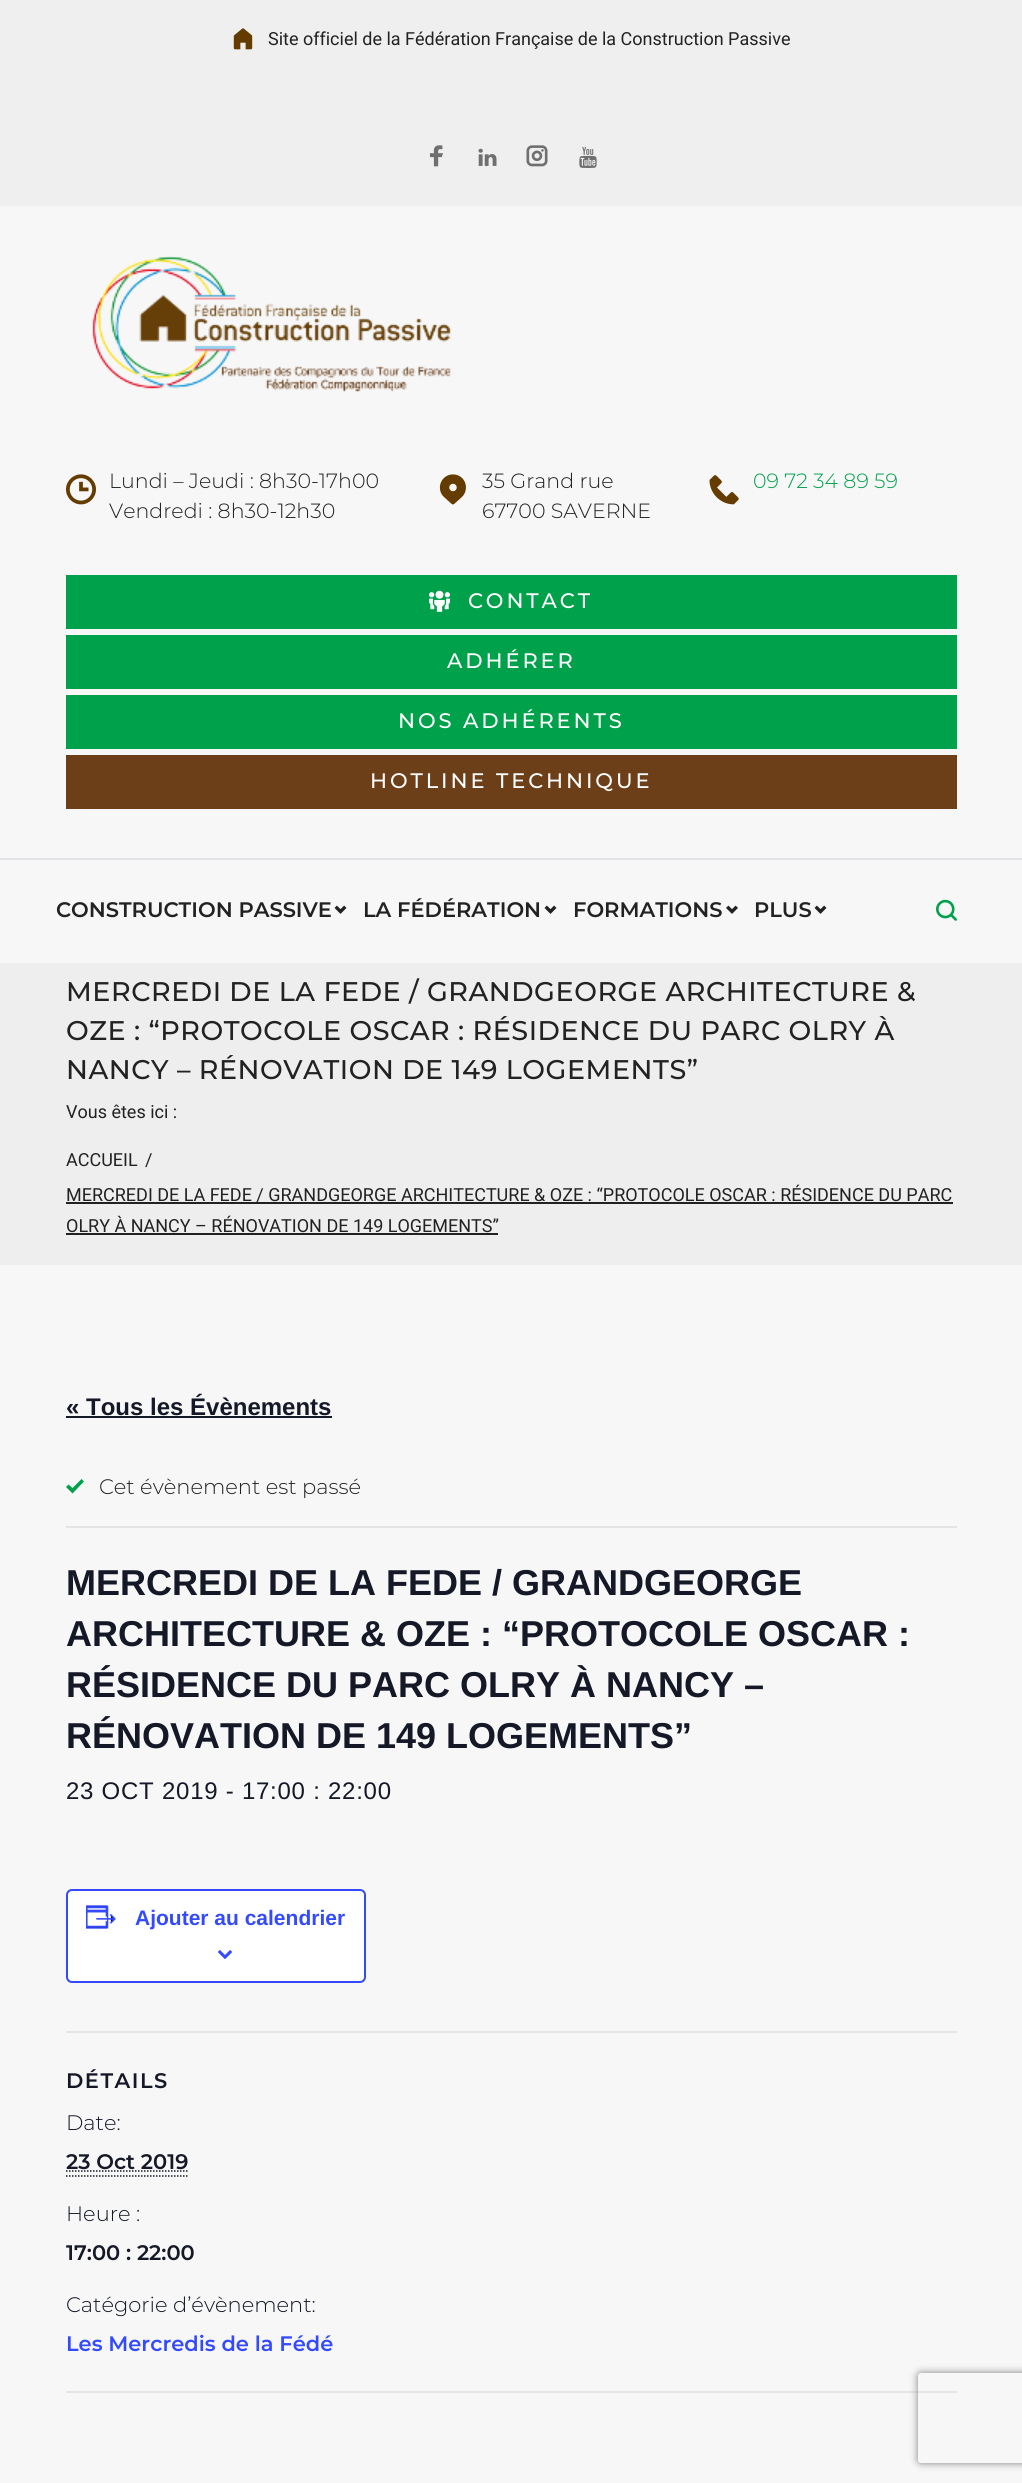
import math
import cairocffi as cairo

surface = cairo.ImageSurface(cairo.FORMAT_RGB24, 1022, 2483)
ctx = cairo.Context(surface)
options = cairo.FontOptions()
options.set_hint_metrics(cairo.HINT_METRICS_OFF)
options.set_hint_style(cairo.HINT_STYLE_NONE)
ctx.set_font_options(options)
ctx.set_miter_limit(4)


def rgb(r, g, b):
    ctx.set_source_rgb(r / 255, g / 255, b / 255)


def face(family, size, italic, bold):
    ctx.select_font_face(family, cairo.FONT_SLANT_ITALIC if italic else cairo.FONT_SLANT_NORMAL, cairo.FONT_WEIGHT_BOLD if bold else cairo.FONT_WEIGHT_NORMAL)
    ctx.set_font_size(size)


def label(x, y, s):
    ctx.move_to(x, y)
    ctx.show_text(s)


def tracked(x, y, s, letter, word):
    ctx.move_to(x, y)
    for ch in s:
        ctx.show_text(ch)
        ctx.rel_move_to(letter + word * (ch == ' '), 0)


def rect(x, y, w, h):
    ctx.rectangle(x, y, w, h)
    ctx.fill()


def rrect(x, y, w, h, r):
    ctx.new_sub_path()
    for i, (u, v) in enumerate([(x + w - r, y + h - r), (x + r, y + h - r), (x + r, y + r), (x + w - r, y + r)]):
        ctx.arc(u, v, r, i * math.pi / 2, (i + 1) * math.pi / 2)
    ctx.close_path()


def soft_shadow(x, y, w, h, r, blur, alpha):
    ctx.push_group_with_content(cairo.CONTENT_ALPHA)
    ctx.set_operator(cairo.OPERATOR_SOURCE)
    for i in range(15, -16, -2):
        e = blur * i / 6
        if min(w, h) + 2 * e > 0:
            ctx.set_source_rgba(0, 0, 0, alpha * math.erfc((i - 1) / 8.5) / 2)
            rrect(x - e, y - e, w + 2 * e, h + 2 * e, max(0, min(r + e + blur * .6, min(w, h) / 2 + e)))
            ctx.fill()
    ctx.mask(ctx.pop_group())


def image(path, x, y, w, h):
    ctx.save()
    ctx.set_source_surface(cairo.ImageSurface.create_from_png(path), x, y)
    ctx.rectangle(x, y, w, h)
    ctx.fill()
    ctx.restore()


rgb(247, 247, 247)
ctx.paint()
rgb(239, 239, 239)
rect(0, 0, 1022, 206)
image('image0.png', 233, 28, 20, 22)
face('Roboto', 18, 0, 0)
rgb(34, 34, 34)
label(268, 45, 'Site officiel de la Fédération Française de la Construction Passive')
image('image1.png', 429, 145, 14, 22)
image('image2.png', 478, 148, 19, 18)
image('image3.png', 526, 145, 22, 22)
image('image4.png', 579, 147, 18, 21)
image('image5.png', 92, 256, 359, 136)
image('image6.png', 66, 474, 30, 31)
face('Montserrat Light', 20.6, 0, 0)
label(109, 488, 'Lundi – Jeudi : 8h30-17h00')
label(109, 518, 'Vendredi : 8h30-12h30')
image('image7.png', 439, 474, 27, 31)
label(482, 488, '35 Grand rue')
label(482, 518, '67700 SAVERNE')
image('image8.png', 709, 475, 30, 30)
rgb(0, 161, 75)
label(753, 488, '09 72 34 89 59')
rect(66, 575, 891, 54)
image('image9.png', 429, 590, 21, 22)
face('Montserrat Medium', 21, 0, 0)
rgb(255, 255, 255)
tracked(468, 608, 'CONTACT', 2.9, 0)
rgb(0, 161, 75)
rect(66, 635, 891, 54)
rgb(255, 255, 255)
tracked(447, 668, 'ADHÉRER', 2.9, 0)
rgb(0, 161, 75)
rect(66, 695, 891, 54)
rgb(255, 255, 255)
tracked(398, 728, 'NOS ADHÉRENTS', 2.9, 0)
rgb(108, 63, 25)
rect(66, 755, 891, 54)
rgb(255, 255, 255)
tracked(370, 788, 'HOTLINE TECHNIQUE', 2.9, 0)
rgb(227, 226, 231)
rect(0, 858, 1022, 2)
face('Montserrat SemiBold', 21, 0, 0)
rgb(34, 34, 34)
label(56, 917, 'CONSTRUCTION PASSIVE')
image('image10.png', 334, 905, 13, 9)
label(363, 917, 'LA FÉDÉRATION')
image('image10.png', 544, 905, 13, 9)
label(573, 917, 'FORMATIONS')
image('image11.png', 726, 905, 12, 9)
label(754, 917, 'PLUS')
image('image10.png', 814, 905, 13, 9)
image('image12.png', 936, 899, 21, 22)
rgb(238, 238, 238)
rect(0, 963, 1022, 302)
face('Montserrat Medium', 27, 0, 0)
rgb(34, 34, 34)
tracked(66, 1001, 'MERCREDI DE LA FEDE / GRANDGEORGE ARCHITECTURE &', 0.55, 0)
tracked(66, 1040, 'OZE : “PROTOCOLE OSCAR : RÉSIDENCE DU PARC OLRY À', 0.55, 0)
tracked(66, 1079, 'NANCY – RÉNOVATION DE 149 LOGEMENTS”', 0.55, 0)
face('Roboto', 18, 0, 0)
label(66, 1118, 'Vous êtes ici :')
label(66, 1166, 'ACCUEIL')
label(145, 1166, '/')
rect(66, 1202, 887, 2)
label(66, 1201, 'MERCREDI DE LA FEDE / GRANDGEORGE ARCHITECTURE & OZE : “PROTOCOLE OSCAR : RÉSIDENCE DU PARC')
label(66, 1232, 'OLRY À NANCY – RÉNOVATION DE 149 LOGEMENTS”')
rect(66, 1233, 432, 2)
face('Liberation Sans', 24, 0, 1)
rgb(20, 24, 39)
label(66, 1415, '« Tous les Évènements')
rect(66, 1416, 266, 2)
rgb(228, 228, 228)
rect(66, 1526, 891, 2)
rgb(0, 161, 75)
ctx.new_path()
ctx.move_to(72.5, 1488)
ctx.line_to(68.5, 1484.5)
ctx.line_to(66, 1487)
ctx.line_to(72.5, 1493.5)
ctx.line_to(84, 1481.5)
ctx.line_to(81.5, 1479)
ctx.close_path()
ctx.fill()
face('Montserrat Light', 21, 0, 0)
rgb(34, 34, 34)
label(99, 1494, 'Cet évènement est passé')
face('Liberation Sans', 36, 0, 1)
rgb(20, 24, 39)
label(66, 1595, 'MERCREDI DE LA FEDE / GRANDGEORGE')
label(66, 1646, 'ARCHITECTURE & OZE : “PROTOCOLE OSCAR :')
label(66, 1697, 'RÉSIDENCE DU PARC OLRY À NANCY –')
label(66, 1748, 'RÉNOVATION DE 149 LOGEMENTS”')
face('Liberation Sans', 24, 0, 0)
tracked(66, 1799, '23 OCT 2019 - 17:00 : 22:00', 0.75, 0)
rgb(255, 255, 255)
rrect(67, 1890, 298, 92, 5)
ctx.fill_preserve()
rgb(51, 74, 255)
ctx.stroke()
image('image13.png', 86, 1905, 30, 24)
face('Liberation Sans', 21, 0, 1)
label(135, 1925, 'Ajouter au calendrier')
image('image14.png', 218, 1950, 15, 9)
rgb(228, 228, 228)
rect(66, 2031, 891, 2)
face('Montserrat SemiBold', 21, 0, 0)
rgb(20, 24, 39)
tracked(66, 2088, 'DÉTAILS', 1.5, 0)
face('Montserrat Light', 21, 0, 0)
label(66, 2130, 'Date:')
face('Montserrat SemiBold', 21, 0, 0)
label(66, 2169, '23 Oct 2019')
ctx.new_path()
ctx.move_to(66, 2176)
ctx.line_to(187.5, 2176)
ctx.set_line_width(1.5)
ctx.set_dash([1.5, 1.5])
ctx.stroke()
ctx.new_path()
ctx.move_to(66, 2171)
ctx.line_to(188, 2171)
ctx.stroke()
face('Montserrat Light', 21, 0, 0)
label(66, 2221, 'Heure :')
face('Montserrat SemiBold', 21, 0, 0)
label(66, 2260, '17:00 : 22:00')
face('Montserrat Light', 21, 0, 0)
label(66, 2312, 'Catégorie d’évènement:')
face('Montserrat SemiBold', 21, 0, 0)
rgb(51, 74, 255)
label(66, 2351, 'Les Mercredis de la Fédé')
rgb(228, 228, 228)
rect(66, 2391, 891, 2)
ctx.save()
ctx.set_fill_rule(cairo.FILL_RULE_EVEN_ODD)
ctx.new_path()
ctx.move_to(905, 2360)
ctx.line_to(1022, 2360)
ctx.line_to(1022, 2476)
ctx.line_to(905, 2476)
ctx.close_path()
ctx.move_to(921, 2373)
ctx.line_to(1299, 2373)
ctx.curve_to(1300.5, 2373, 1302, 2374.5, 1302, 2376)
ctx.line_to(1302, 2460)
ctx.curve_to(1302, 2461.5, 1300.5, 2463, 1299, 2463)
ctx.line_to(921, 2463)
ctx.curve_to(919.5, 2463, 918, 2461.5, 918, 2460)
ctx.line_to(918, 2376)
ctx.curve_to(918, 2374.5, 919.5, 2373, 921, 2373)
ctx.close_path()
ctx.clip()
rgb(128, 128, 128)
soft_shadow(918, 2373, 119, 90, 3, 4, 1)
ctx.restore()
surface.write_to_png('render.png')
